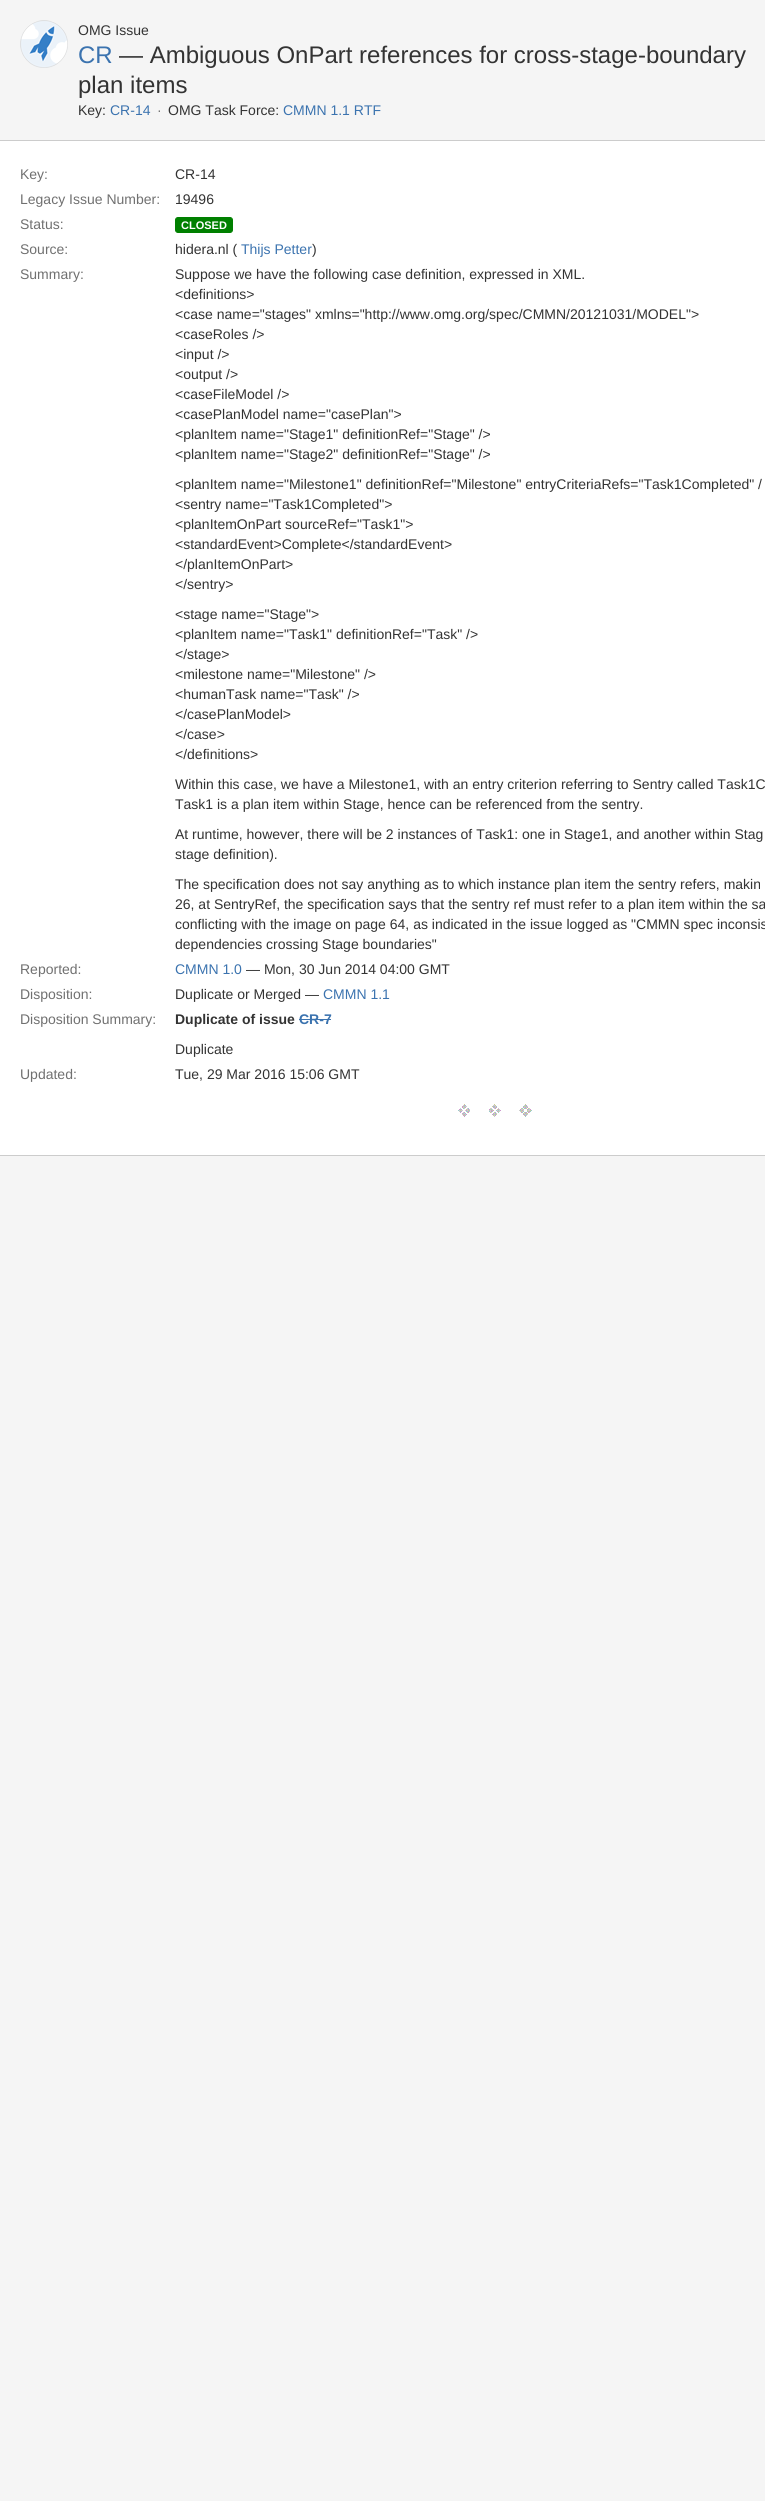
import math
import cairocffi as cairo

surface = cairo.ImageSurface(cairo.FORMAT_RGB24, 765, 2501)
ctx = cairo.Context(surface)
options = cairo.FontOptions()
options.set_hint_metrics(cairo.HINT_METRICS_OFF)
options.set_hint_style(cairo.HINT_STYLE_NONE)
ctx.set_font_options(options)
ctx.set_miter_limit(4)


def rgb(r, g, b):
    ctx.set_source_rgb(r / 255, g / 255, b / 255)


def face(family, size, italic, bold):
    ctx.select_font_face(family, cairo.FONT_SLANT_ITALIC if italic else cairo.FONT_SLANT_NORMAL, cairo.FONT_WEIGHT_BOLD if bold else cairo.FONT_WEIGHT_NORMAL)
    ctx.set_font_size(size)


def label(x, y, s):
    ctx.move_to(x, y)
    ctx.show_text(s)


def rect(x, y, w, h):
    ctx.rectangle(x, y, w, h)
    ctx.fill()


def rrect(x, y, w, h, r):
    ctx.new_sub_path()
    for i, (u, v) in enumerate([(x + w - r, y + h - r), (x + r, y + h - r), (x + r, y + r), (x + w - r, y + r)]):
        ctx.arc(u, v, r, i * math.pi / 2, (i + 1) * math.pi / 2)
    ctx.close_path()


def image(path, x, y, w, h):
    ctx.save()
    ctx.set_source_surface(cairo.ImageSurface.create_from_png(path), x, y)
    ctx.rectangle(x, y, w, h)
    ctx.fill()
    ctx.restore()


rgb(245, 245, 245)
ctx.paint()
image('image0.png', 20, 20, 48, 48)
face('Liberation Sans', 14, 0, 0)
rgb(51, 51, 51)
label(78, 35, 'OMG Issue')
face('Liberation Sans', 24, 0, 0)
rgb(59, 115, 175)
label(78, 63, 'CR')
rgb(51, 51, 51)
label(119, 63, '— Ambiguous OnPart references for cross-stage-boundary')
label(78, 93, 'plan items')
face('Liberation Sans', 14, 0, 0)
label(78, 115, 'Key:')
rgb(59, 115, 175)
label(110, 115, 'CR-14')
rgb(112, 112, 112)
label(157, 115, '·')
rgb(51, 51, 51)
label(168, 115, 'OMG Task Force:')
rgb(59, 115, 175)
label(283, 115, 'CMMN 1.1 RTF')
rgb(255, 255, 255)
rect(0, 141, 765, 1014)
rgb(204, 204, 204)
rect(0, 140, 765, 1)
rect(0, 1155, 765, 1)
rgb(112, 112, 112)
label(20, 179, 'Key:')
rgb(51, 51, 51)
label(175, 179, 'CR-14')
rgb(112, 112, 112)
label(20, 204, 'Legacy Issue Number:')
rgb(51, 51, 51)
label(175, 204, '19496')
rgb(112, 112, 112)
label(20, 229, 'Status:')
rgb(0, 128, 0)
rrect(175.5, 217.5, 57, 15, 2.5)
ctx.fill_preserve()
ctx.set_line_width(1)
ctx.stroke()
face('Liberation Sans', 11, 0, 1)
rgb(255, 255, 255)
label(181, 229, 'CLOSED')
face('Liberation Sans', 14, 0, 0)
rgb(112, 112, 112)
label(20, 254, 'Source:')
rgb(51, 51, 51)
label(175, 254, 'hidera.nl (')
rgb(59, 115, 175)
label(241, 254, 'Thijs Petter')
rgb(51, 51, 51)
label(312, 254, ')')
rgb(112, 112, 112)
label(20, 279, 'Summary:')
rgb(51, 51, 51)
label(175, 279, 'Suppose we have the following case definition, expressed in XML.')
label(175, 299, '<definitions>')
label(175, 319, '<case name="stages" xmlns="http://www.omg.org/spec/CMMN/20121031/MODEL">')
label(175, 339, '<caseRoles />')
label(175, 359, '<input />')
label(175, 379, '<output />')
label(175, 399, '<caseFileModel />')
label(175, 419, '<casePlanModel name="casePlan">')
label(175, 439, '<planItem name="Stage1" definitionRef="Stage" />')
label(175, 459, '<planItem name="Stage2" definitionRef="Stage" />')
label(175, 489, '<planItem name="Milestone1" definitionRef="Milestone" entryCriteriaRefs="Task1Completed" /')
label(175, 509, '<sentry name="Task1Completed">')
label(175, 529, '<planItemOnPart sourceRef="Task1">')
label(175, 549, '<standardEvent>Complete</standardEvent>')
label(175, 569, '</planItemOnPart>')
label(175, 589, '</sentry>')
label(175, 619, '<stage name="Stage">')
label(175, 639, '<planItem name="Task1" definitionRef="Task" />')
label(175, 659, '</stage>')
label(175, 679, '<milestone name="Milestone" />')
label(175, 699, '<humanTask name="Task" />')
label(175, 719, '</casePlanModel>')
label(175, 739, '</case>')
label(175, 759, '</definitions>')
label(175, 789, 'Within this case, we have a Milestone1, with an entry criterion referring to Sentry called Task1C')
label(175, 809, 'Task1 is a plan item within Stage, hence can be referenced from the sentry.')
label(175, 839, 'At runtime, however, there will be 2 instances of Task1: one in Stage1, and another within Stag')
label(175, 859, 'stage definition).')
label(175, 889, 'The specification does not say anything as to which instance plan item the sentry refers, makin')
label(175, 909, '26, at SentryRef, the specification says that the sentry ref must refer to a plan item within the sa')
label(175, 929, 'conflicting with the image on page 64, as indicated in the issue logged as "CMMN spec inconsis')
label(175, 949, 'dependencies crossing Stage boundaries"')
rgb(112, 112, 112)
label(20, 974, 'Reported:')
rgb(59, 115, 175)
label(175, 974, 'CMMN 1.0')
rgb(51, 51, 51)
label(246, 974, '— Mon, 30 Jun 2014 04:00 GMT')
rgb(112, 112, 112)
label(20, 999, 'Disposition:')
rgb(51, 51, 51)
label(175, 999, 'Duplicate or Merged —')
rgb(59, 115, 175)
label(323, 999, 'CMMN 1.1')
rgb(112, 112, 112)
label(20, 1024, 'Disposition Summary:')
face('Liberation Sans', 14, 0, 1)
rgb(51, 51, 51)
label(175, 1024, 'Duplicate of issue')
rgb(59, 115, 175)
label(299, 1024, 'CR-7')
rect(299, 1019, 32, 1)
face('Liberation Sans', 14, 0, 0)
rgb(51, 51, 51)
label(175, 1054, 'Duplicate')
rgb(112, 112, 112)
label(20, 1079, 'Updated:')
rgb(51, 51, 51)
label(175, 1079, 'Tue, 29 Mar 2016 15:06 GMT')
image('image1.png', 458, 1104, 74, 13)
surface.write_to_png('render.png')
